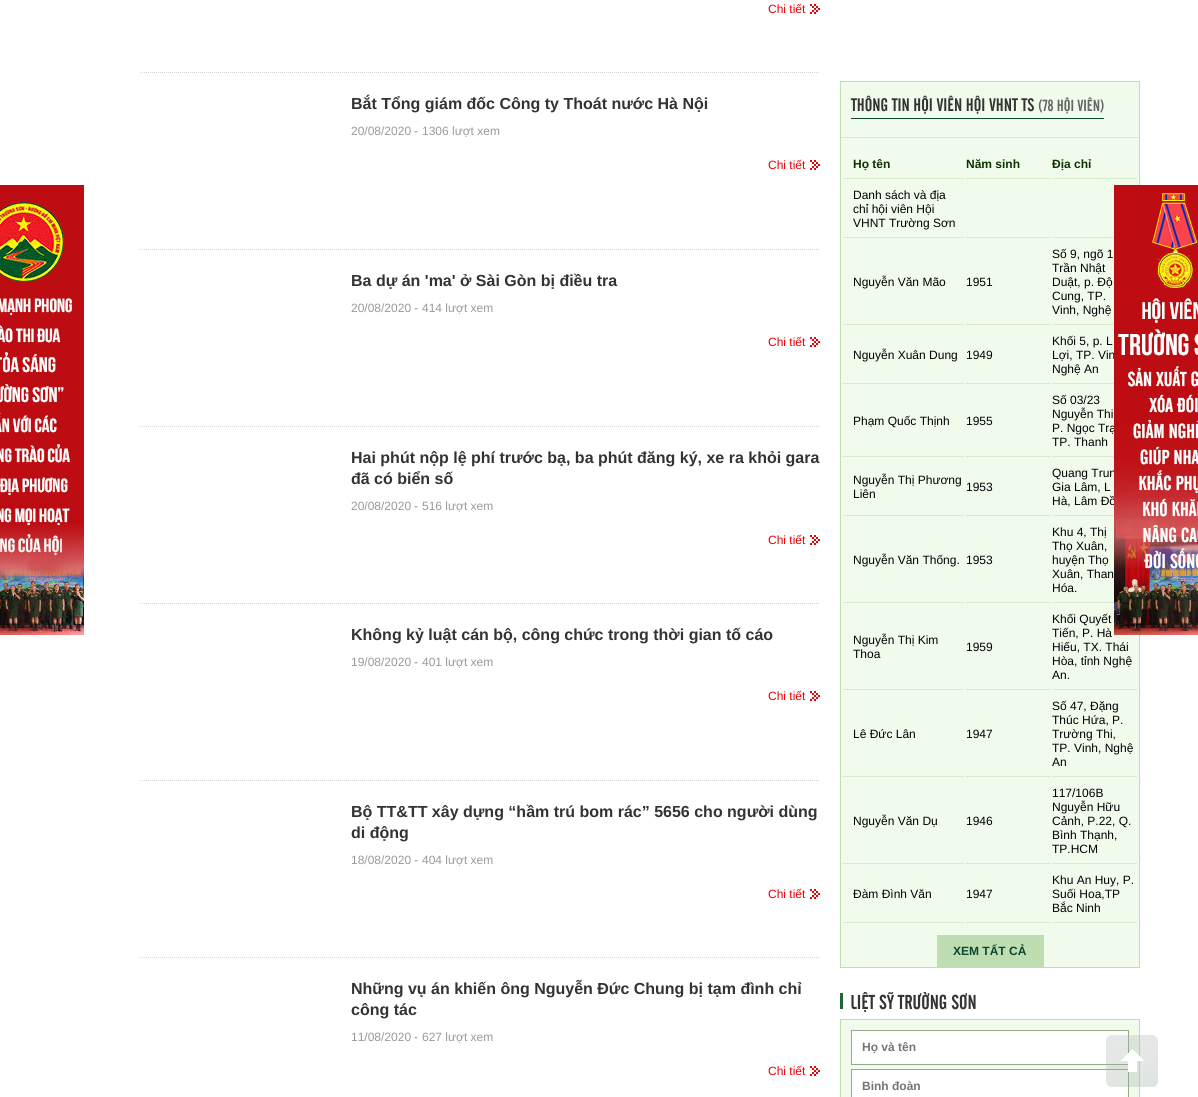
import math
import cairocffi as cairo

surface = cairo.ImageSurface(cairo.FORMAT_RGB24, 1198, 1097)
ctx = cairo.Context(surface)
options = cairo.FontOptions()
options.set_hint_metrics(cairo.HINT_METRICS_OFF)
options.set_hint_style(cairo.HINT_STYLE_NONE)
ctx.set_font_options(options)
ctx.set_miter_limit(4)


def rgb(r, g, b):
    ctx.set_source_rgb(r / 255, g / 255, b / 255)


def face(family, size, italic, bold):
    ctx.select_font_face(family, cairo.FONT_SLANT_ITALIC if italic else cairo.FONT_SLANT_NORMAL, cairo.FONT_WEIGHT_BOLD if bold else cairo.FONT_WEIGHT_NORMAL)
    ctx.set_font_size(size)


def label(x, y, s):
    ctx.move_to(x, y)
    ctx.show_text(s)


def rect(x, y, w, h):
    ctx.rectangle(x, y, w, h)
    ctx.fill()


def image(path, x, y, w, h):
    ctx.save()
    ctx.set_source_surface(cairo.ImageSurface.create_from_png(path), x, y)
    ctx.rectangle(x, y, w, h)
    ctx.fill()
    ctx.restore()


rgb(255, 255, 255)
ctx.paint()
image('image0.png', 0, 185, 84, 450)
ctx.new_path()
ctx.move_to(140, 72.5)
ctx.line_to(820, 72.5)
rgb(215, 215, 215)
ctx.set_line_width(1)
ctx.set_dash([1, 1])
ctx.stroke()
image('image1.png', 810, 4, 10, 10)
face('Liberation Sans', 12, 0, 0)
rgb(235, 0, 6)
label(768, 13, 'Chi tiết')
ctx.new_path()
ctx.move_to(140, 249.5)
ctx.line_to(820, 249.5)
rgb(215, 215, 215)
ctx.stroke()
face('Liberation Sans', 16, 0, 1)
rgb(51, 51, 51)
label(351, 109, 'Bắt Tổng giám đốc Công ty Thoát nước Hà Nội')
face('Liberation Sans', 12, 0, 0)
rgb(153, 153, 153)
label(351, 135, '20/08/2020')
rgb(136, 136, 136)
label(414, 135, '-')
rgb(153, 153, 153)
label(422, 135, '1306 lượt xem')
image('image1.png', 810, 160, 10, 10)
rgb(235, 0, 6)
label(768, 169, 'Chi tiết')
ctx.new_path()
ctx.move_to(140, 426.5)
ctx.line_to(820, 426.5)
rgb(215, 215, 215)
ctx.stroke()
face('Liberation Sans', 16, 0, 1)
rgb(51, 51, 51)
label(351, 286, 'Ba dự án \'ma\' ở Sài Gòn bị điều tra')
face('Liberation Sans', 12, 0, 0)
rgb(153, 153, 153)
label(351, 312, '20/08/2020')
rgb(136, 136, 136)
label(414, 312, '-')
rgb(153, 153, 153)
label(422, 312, '414 lượt xem')
image('image1.png', 810, 337, 10, 10)
rgb(235, 0, 6)
label(768, 346, 'Chi tiết')
ctx.new_path()
ctx.move_to(140, 603.5)
ctx.line_to(820, 603.5)
rgb(215, 215, 215)
ctx.stroke()
face('Liberation Sans', 16, 0, 1)
rgb(51, 51, 51)
label(351, 463, 'Hai phút nộp lệ phí trước bạ, ba phút đăng ký, xe ra khỏi gara')
label(351, 484, 'đã có biển số')
face('Liberation Sans', 12, 0, 0)
rgb(153, 153, 153)
label(351, 510, '20/08/2020')
rgb(136, 136, 136)
label(414, 510, '-')
rgb(153, 153, 153)
label(422, 510, '516 lượt xem')
image('image1.png', 810, 535, 10, 10)
rgb(235, 0, 6)
label(768, 544, 'Chi tiết')
ctx.new_path()
ctx.move_to(140, 780.5)
ctx.line_to(820, 780.5)
rgb(215, 215, 215)
ctx.stroke()
face('Liberation Sans', 16, 0, 1)
rgb(51, 51, 51)
label(351, 640, 'Không kỷ luật cán bộ, công chức trong thời gian tố cáo')
face('Liberation Sans', 12, 0, 0)
rgb(153, 153, 153)
label(351, 666, '19/08/2020')
rgb(136, 136, 136)
label(414, 666, '-')
rgb(153, 153, 153)
label(422, 666, '401 lượt xem')
image('image1.png', 810, 691, 10, 10)
rgb(235, 0, 6)
label(768, 700, 'Chi tiết')
ctx.new_path()
ctx.move_to(140, 957.5)
ctx.line_to(820, 957.5)
rgb(215, 215, 215)
ctx.stroke()
face('Liberation Sans', 16, 0, 1)
rgb(51, 51, 51)
label(351, 817, 'Bộ TT&TT xây dựng “hầm trú bom rác” 5656 cho người dùng')
label(351, 838, 'di động')
face('Liberation Sans', 12, 0, 0)
rgb(153, 153, 153)
label(351, 864, '18/08/2020')
rgb(136, 136, 136)
label(414, 864, '-')
rgb(153, 153, 153)
label(422, 864, '404 lượt xem')
image('image1.png', 810, 889, 10, 10)
rgb(235, 0, 6)
label(768, 898, 'Chi tiết')
face('Liberation Sans', 16, 0, 1)
rgb(51, 51, 51)
label(351, 994, 'Những vụ án khiến ông Nguyễn Đức Chung bị tạm đình chỉ')
label(351, 1015, 'công tác')
face('Liberation Sans', 12, 0, 0)
rgb(153, 153, 153)
label(351, 1041, '11/08/2020')
rgb(136, 136, 136)
label(414, 1041, '-')
rgb(153, 153, 153)
label(422, 1041, '627 lượt xem')
image('image1.png', 810, 1066, 10, 10)
rgb(235, 0, 6)
label(768, 1075, 'Chi tiết')
rgb(240, 251, 236)
ctx.rectangle(840.5, 81.5, 299, 886)
ctx.fill_preserve()
rgb(191, 223, 179)
ctx.set_dash([])
ctx.stroke()
rgb(11, 71, 49)
rect(851, 118, 253, 1)
face('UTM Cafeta', 18, 0, 0)
rgb(51, 51, 51)
label(851, 111, 'THÔNG TIN HỘI VIÊN HỘI VHNT TS')
face('UTM Cafeta', 16, 0, 0)
rgb(102, 102, 102)
label(1038, 111, '(78 HỘI VIÊN)')
rgb(214, 236, 205)
rect(841, 137, 298, 1)
rect(843, 178, 121, 1)
face('Liberation Sans', 12, 0, 1)
rgb(14, 50, 0)
label(853, 168, 'Họ tên')
rgb(214, 236, 205)
rect(966, 178, 84, 1)
rgb(14, 50, 0)
label(966, 168, 'Năm sinh')
rgb(214, 236, 205)
rect(1052, 178, 85, 1)
rgb(14, 50, 0)
label(1052, 168, 'Địa chỉ')
rgb(214, 236, 205)
rect(843, 237, 121, 1)
face('Liberation Sans', 12, 0, 0)
rgb(0, 0, 0)
label(853, 199, 'Danh sách và địa')
label(853, 213, 'chỉ hội viên Hội')
label(853, 227, 'VHNT Trường Sơn')
rgb(214, 236, 205)
rect(966, 237, 84, 1)
rect(1052, 237, 62, 1)
rect(843, 324, 121, 1)
rgb(0, 0, 0)
label(853, 286, 'Nguyễn Văn Mão')
rgb(214, 236, 205)
rect(966, 324, 84, 1)
rgb(0, 0, 0)
label(966, 286, '1951')
rgb(214, 236, 205)
rect(1052, 324, 62, 1)
rgb(0, 0, 0)
label(1052, 258, 'Số 9, ngõ 1')
label(1052, 272, 'Trần Nhật')
label(1052, 286, 'Duật, p. Độ')
label(1052, 300, 'Cung, TP.')
label(1052, 314, 'Vinh, Nghệ')
rgb(214, 236, 205)
rect(843, 383, 121, 1)
rgb(0, 0, 0)
label(853, 359, 'Nguyễn Xuân Dung')
rgb(214, 236, 205)
rect(966, 383, 84, 1)
rgb(0, 0, 0)
label(966, 359, '1949')
rgb(214, 236, 205)
rect(1052, 383, 62, 1)
rgb(0, 0, 0)
label(1052, 345, 'Khối 5, p. L')
label(1052, 359, 'Lợi, TP. Vin')
label(1052, 373, 'Nghệ An')
rgb(214, 236, 205)
rect(843, 456, 121, 1)
rgb(0, 0, 0)
label(853, 425, 'Phạm Quốc Thịnh')
rgb(214, 236, 205)
rect(966, 456, 84, 1)
rgb(0, 0, 0)
label(966, 425, '1955')
rgb(214, 236, 205)
rect(1052, 456, 62, 1)
rgb(0, 0, 0)
label(1052, 404, 'Số 03/23')
label(1052, 418, 'Nguyễn Thi')
label(1052, 432, 'P. Ngọc Trạ')
label(1052, 446, 'TP. Thanh')
rgb(214, 236, 205)
rect(843, 515, 121, 1)
rgb(0, 0, 0)
label(853, 484, 'Nguyễn Thị Phương')
label(853, 498, 'Liên')
rgb(214, 236, 205)
rect(966, 515, 84, 1)
rgb(0, 0, 0)
label(966, 491, '1953')
rgb(214, 236, 205)
rect(1052, 515, 62, 1)
rgb(0, 0, 0)
label(1052, 477, 'Quang Trun')
label(1052, 491, 'Gia Lâm, L')
label(1052, 505, 'Hà, Lâm Đồ')
rgb(214, 236, 205)
rect(843, 602, 121, 1)
rgb(0, 0, 0)
label(853, 564, 'Nguyễn Văn Thống.')
rgb(214, 236, 205)
rect(966, 602, 84, 1)
rgb(0, 0, 0)
label(966, 564, '1953')
rgb(214, 236, 205)
rect(1052, 602, 62, 1)
rgb(0, 0, 0)
label(1052, 536, 'Khu 4, Thị')
label(1052, 550, 'Thọ Xuân,')
label(1052, 564, 'huyện Thọ')
label(1052, 578, 'Xuân, Than')
label(1052, 592, 'Hóa.')
rgb(214, 236, 205)
rect(843, 689, 121, 1)
rgb(0, 0, 0)
label(853, 644, 'Nguyễn Thị Kim')
label(853, 658, 'Thoa')
rgb(214, 236, 205)
rect(966, 689, 84, 1)
rgb(0, 0, 0)
label(966, 651, '1959')
rgb(214, 236, 205)
rect(1052, 689, 85, 1)
rgb(0, 0, 0)
label(1052, 623, 'Khối Quyết')
label(1052, 637, 'Tiến, P. Hà')
label(1052, 651, 'Hiếu, TX. Thái')
label(1052, 665, 'Hòa, tỉnh Nghệ')
label(1052, 679, 'An.')
rgb(214, 236, 205)
rect(843, 776, 121, 1)
rgb(0, 0, 0)
label(853, 738, 'Lê Đức Lân')
rgb(214, 236, 205)
rect(966, 776, 84, 1)
rgb(0, 0, 0)
label(966, 738, '1947')
rgb(214, 236, 205)
rect(1052, 776, 85, 1)
rgb(0, 0, 0)
label(1052, 710, 'Số 47, Đặng')
label(1052, 724, 'Thúc Hứa, P.')
label(1052, 738, 'Trường Thi,')
label(1052, 752, 'TP. Vinh, Nghệ')
label(1052, 766, 'An')
rgb(214, 236, 205)
rect(843, 863, 121, 1)
rgb(0, 0, 0)
label(853, 825, 'Nguyễn Văn Dụ')
rgb(214, 236, 205)
rect(966, 863, 84, 1)
rgb(0, 0, 0)
label(966, 825, '1946')
rgb(214, 236, 205)
rect(1052, 863, 85, 1)
rgb(0, 0, 0)
label(1052, 797, '117/106B')
label(1052, 811, 'Nguyễn Hữu')
label(1052, 825, 'Cảnh, P.22, Q.')
label(1052, 839, 'Bình Thạnh,')
label(1052, 853, 'TP.HCM')
rgb(214, 236, 205)
rect(843, 922, 121, 1)
rgb(0, 0, 0)
label(853, 898, 'Đàm Đình Văn')
rgb(214, 236, 205)
rect(966, 922, 84, 1)
rgb(0, 0, 0)
label(966, 898, '1947')
rgb(214, 236, 205)
rect(1052, 922, 85, 1)
rgb(0, 0, 0)
label(1052, 884, 'Khu An Huy, P.')
label(1052, 898, 'Suối Hoa,TP')
label(1052, 912, 'Bắc Ninh')
rgb(190, 222, 178)
rect(937, 935, 107, 32)
face('Liberation Sans', 12, 0, 1)
rgb(11, 71, 49)
label(953, 955, 'XEM TẤT CẢ')
rgb(31, 103, 57)
rect(840, 993, 3, 16)
face('UTM Cafeta', 20, 0, 0)
rgb(51, 51, 51)
label(850, 1009, 'LIỆT SỸ TRƯỜNG SƠN')
rgb(240, 251, 236)
ctx.rectangle(840.5, 1019.5, 299, 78)
ctx.fill_preserve()
rgb(190, 222, 178)
ctx.stroke()
rgb(255, 255, 255)
ctx.rectangle(851.5, 1030.5, 277, 34)
ctx.fill_preserve()
rgb(145, 170, 136)
ctx.stroke()
face('Liberation Sans', 12, 0, 1)
rgb(117, 117, 117)
label(862, 1051, 'Họ và tên')
rgb(255, 255, 255)
ctx.rectangle(851.5, 1069.5, 277, 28)
ctx.fill_preserve()
rgb(145, 170, 136)
ctx.stroke()
rgb(117, 117, 117)
label(862, 1090, 'Binh đoàn')
image('image2.png', 1114, 185, 84, 450)
image('image3.png', 1106, 1035, 52, 52)
surface.write_to_png('render.png')
